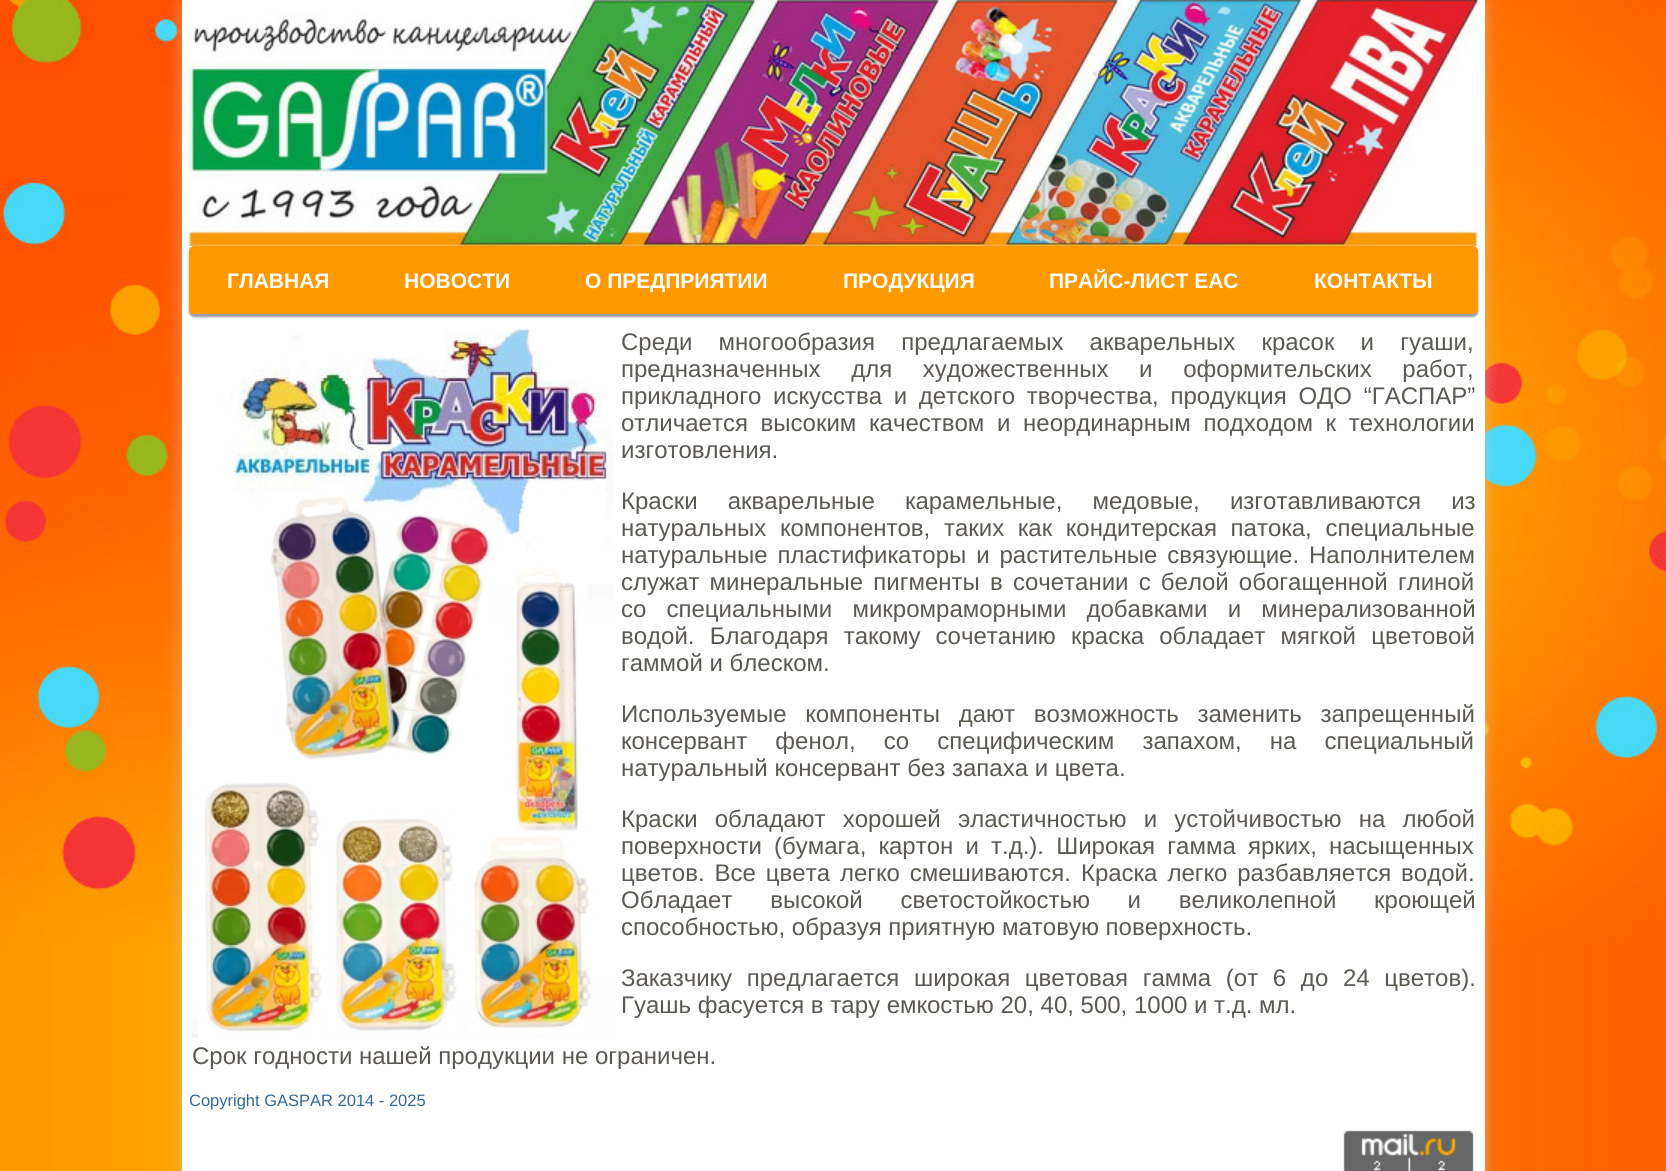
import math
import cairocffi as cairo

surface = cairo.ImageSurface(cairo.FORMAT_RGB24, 1666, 1171)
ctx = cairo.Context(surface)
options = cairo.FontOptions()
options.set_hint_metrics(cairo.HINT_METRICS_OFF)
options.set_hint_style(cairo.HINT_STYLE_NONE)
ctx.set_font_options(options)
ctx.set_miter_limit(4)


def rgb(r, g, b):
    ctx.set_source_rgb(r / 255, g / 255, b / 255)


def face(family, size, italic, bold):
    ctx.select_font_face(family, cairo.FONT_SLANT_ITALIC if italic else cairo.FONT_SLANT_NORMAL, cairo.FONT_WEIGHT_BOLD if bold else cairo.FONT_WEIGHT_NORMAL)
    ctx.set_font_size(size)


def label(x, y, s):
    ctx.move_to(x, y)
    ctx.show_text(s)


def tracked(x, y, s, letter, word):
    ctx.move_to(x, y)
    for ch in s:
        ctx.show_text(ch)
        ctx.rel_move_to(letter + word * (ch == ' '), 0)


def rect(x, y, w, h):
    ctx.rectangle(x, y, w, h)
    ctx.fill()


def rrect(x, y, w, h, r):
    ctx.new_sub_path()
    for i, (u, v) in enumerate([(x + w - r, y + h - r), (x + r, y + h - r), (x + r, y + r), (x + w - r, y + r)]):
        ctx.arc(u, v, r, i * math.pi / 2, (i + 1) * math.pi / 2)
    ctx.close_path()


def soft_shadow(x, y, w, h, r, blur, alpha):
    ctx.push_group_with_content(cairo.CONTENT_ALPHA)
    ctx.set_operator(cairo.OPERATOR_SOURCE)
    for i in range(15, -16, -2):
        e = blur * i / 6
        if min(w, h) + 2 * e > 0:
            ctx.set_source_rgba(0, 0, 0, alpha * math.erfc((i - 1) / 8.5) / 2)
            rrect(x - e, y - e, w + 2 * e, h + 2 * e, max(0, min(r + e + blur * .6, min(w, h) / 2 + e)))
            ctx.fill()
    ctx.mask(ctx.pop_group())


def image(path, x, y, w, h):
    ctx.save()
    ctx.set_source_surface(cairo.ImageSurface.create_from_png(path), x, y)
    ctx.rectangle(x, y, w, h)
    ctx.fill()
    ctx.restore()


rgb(255, 255, 255)
ctx.paint()
image('image0.png', 0, 0, 1666, 1171)
rgb(213, 210, 210)
soft_shadow(182, 0, 1303, 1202, 8, 7.5, 0.5)
rgb(255, 255, 255)
rect(182, 0, 1303, 1171)
rgb(156, 156, 156)
soft_shadow(189, 249, 1289, 68, 5, 1, 1)
image('image1.png', 189, 0, 1289, 246)
gradient = cairo.LinearGradient(833, 246, 833, 314)
gradient.add_color_stop_rgba(0, 0.992, 0.596, 0, 1)
gradient.add_color_stop_rgba(1, 1, 0.6, 0, 1)
ctx.set_source(gradient)
rrect(189, 246, 1289, 68, 5)
ctx.fill()
face('Liberation Sans', 21, 0, 1)
rgb(255, 255, 255)
label(227, 288, 'ГЛАВНАЯ')
label(404, 288, 'НОВОСТИ')
label(585, 288, 'О ПРЕДПРИЯТИИ')
label(843, 288, 'ПРОДУКЦИЯ')
label(1049, 288, 'ПРАЙС-ЛИСТ EAC')
label(1314, 288, 'КОНТАКТЫ')
image('image2.png', 192, 328, 422, 710)
face('Liberation Sans', 24, 0, 0)
rgb(92, 89, 83)
tracked(621, 350, 'Среди многообразия предлагаемых акварельных красок и гуаши,', 0, 19.5)
tracked(621, 377, 'предназначенных для художественных и оформительских работ,', 0, 24)
tracked(621, 404, 'прикладного искусства и детского творчества, продукция ОДО “ГАСПАР”', 0, 5)
tracked(621, 431, 'отличается высоким качеством и неординарным подходом к технологии', 0, 6)
label(621, 458, 'изготовления.')
tracked(621, 509, 'Краски акварельные карамельные, медовые, изготавливаются из', 0, 23.5)
tracked(621, 536, 'натуральных компонентов, таких как кондитерская патока, специальные', 0, 7)
tracked(621, 563, 'натуральные пластификаторы и растительные связующие. Наполнителем', 0, 3.25)
tracked(621, 590, 'служат минеральные пигменты в сочетании с белой обогащенной глиной', 0, 3.5)
tracked(621, 617, 'со специальными микромраморными добавками и минерализованной', 0, 13.5)
tracked(621, 644, 'водой. Благодаря такому сочетанию краска обладает мягкой цветовой', 0, 8.5)
label(621, 671, 'гаммой и блеском.')
tracked(621, 722, 'Используемые компоненты дают возможность заменить запрещенный', 0, 12)
tracked(621, 749, 'консервант фенол, со специфическим запахом, на специальный', 0, 21.5)
label(621, 776, 'натуральный консервант без запаха и цвета.')
tracked(621, 827, 'Краски обладают хорошей эластичностью и устойчивостью на любой', 0, 10.5)
tracked(621, 854, 'поверхности (бумага, картон и т.д.). Широкая гамма ярких, насыщенных', 0, 5.5)
tracked(621, 881, 'цветов. Все цвета легко смешиваются. Краска легко разбавляется водой.', 0, 3.25)
tracked(621, 908, 'Обладает высокой светостойкостью и великолепной кроющей', 0, 31)
label(621, 935, 'способностью, образуя приятную матовую поверхность.')
tracked(621, 986, 'Заказчику предлагается широкая цветовая гамма (от 6 до 24 цветов).', 0, 8)
label(621, 1013, 'Гуашь фасуется в тару емкостью 20, 40, 500, 1000 и т.д. мл.')
label(192, 1064, 'Срок годности нашей продукции не ограничен.')
face('Liberation Sans', 16.5, 0, 0)
rgb(51, 102, 153)
label(189, 1106, 'Copyright GASPAR 2014 - 2025')
image('image3.png', 1343, 1130, 131, 41)
surface.write_to_png('render.png')
